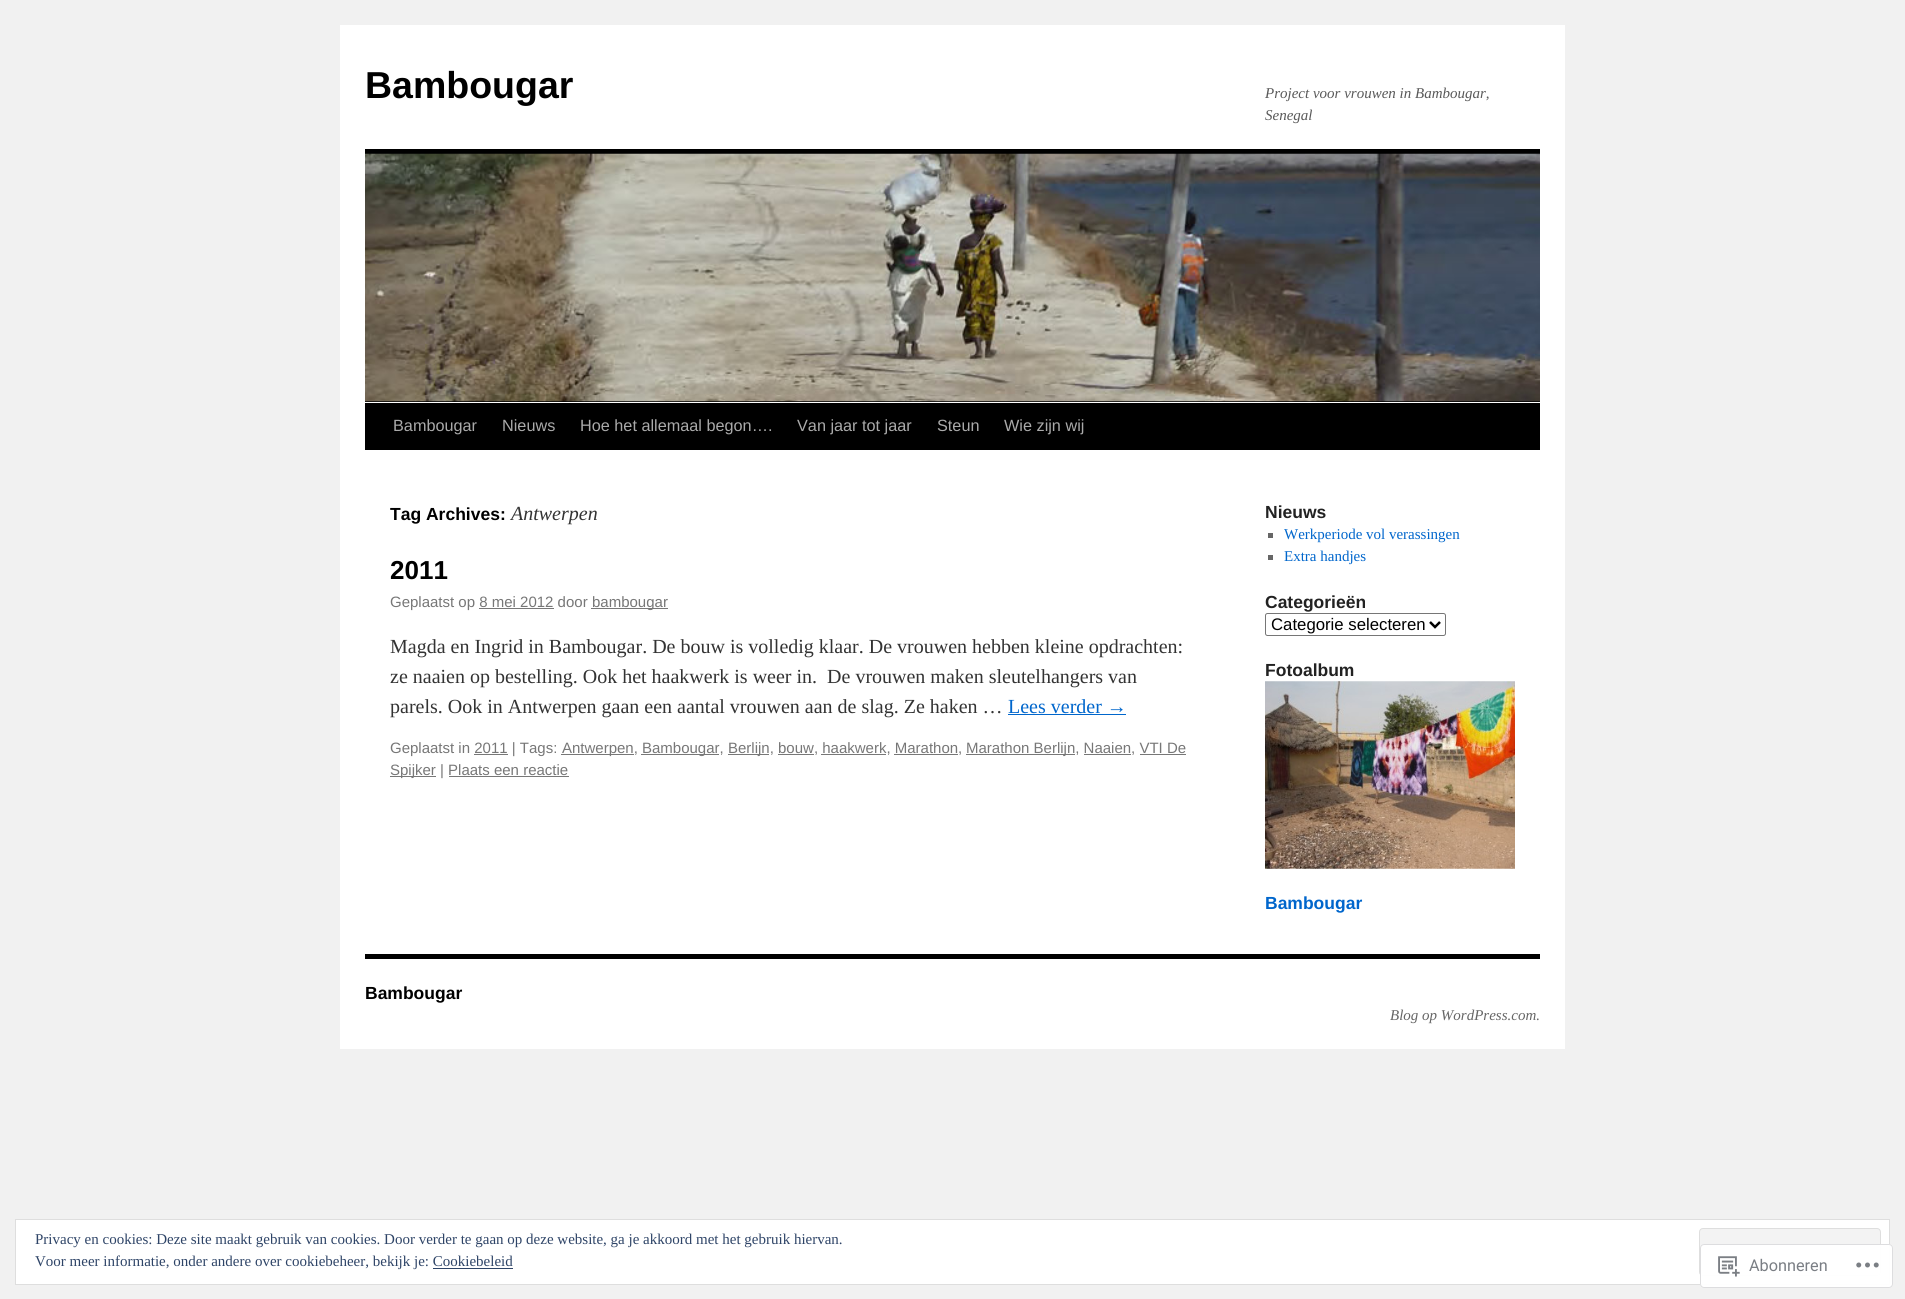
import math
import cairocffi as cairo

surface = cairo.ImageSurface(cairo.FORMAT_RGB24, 1905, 1299)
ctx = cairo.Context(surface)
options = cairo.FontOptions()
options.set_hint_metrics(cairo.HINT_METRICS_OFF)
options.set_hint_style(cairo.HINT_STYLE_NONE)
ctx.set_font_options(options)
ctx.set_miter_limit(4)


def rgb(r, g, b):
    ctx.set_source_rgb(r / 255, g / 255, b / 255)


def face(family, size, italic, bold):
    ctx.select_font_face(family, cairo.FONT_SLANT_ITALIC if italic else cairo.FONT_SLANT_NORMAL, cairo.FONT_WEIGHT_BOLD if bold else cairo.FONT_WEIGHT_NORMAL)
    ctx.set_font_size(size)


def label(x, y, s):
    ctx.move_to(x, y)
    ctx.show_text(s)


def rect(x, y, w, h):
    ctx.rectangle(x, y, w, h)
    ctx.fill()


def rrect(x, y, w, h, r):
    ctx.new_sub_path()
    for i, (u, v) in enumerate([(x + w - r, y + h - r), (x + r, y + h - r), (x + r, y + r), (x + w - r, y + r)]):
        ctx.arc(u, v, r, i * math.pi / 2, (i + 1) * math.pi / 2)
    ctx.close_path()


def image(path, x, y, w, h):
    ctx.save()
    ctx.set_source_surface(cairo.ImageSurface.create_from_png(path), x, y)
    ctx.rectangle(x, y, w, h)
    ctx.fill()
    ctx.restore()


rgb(241, 241, 241)
ctx.paint()
rgb(255, 255, 255)
rect(340, 25, 1225, 1024)
face('Liberation Sans', 37.5, 0, 1)
rgb(0, 0, 0)
label(365, 98, 'Bambougar')
face('Liberation Serif', 15, 1, 0)
rgb(89, 89, 89)
label(1265, 98, 'Project voor vrouwen in Bambougar,')
label(1265, 120, 'Senegal')
rgb(0, 0, 0)
rect(365, 149, 1175, 5)
rect(365, 401, 1175, 1)
image('image0.png', 365, 153, 1175, 249)
rect(365, 403, 1175, 47)
face('Liberation Sans', 16.25, 0, 0)
rgb(170, 170, 170)
label(393, 431, 'Bambougar')
label(502, 431, 'Nieuws')
label(580, 431, 'Hoe het allemaal begon….')
label(797, 431, 'Van jaar tot jaar')
label(937, 431, 'Steun')
label(1004, 431, 'Wie zijn wij')
face('Liberation Sans', 17.5, 0, 1)
rgb(0, 0, 0)
label(390, 520, 'Tag Archives:')
face('Liberation Serif', 20, 1, 0)
rgb(51, 51, 51)
label(511, 520, 'Antwerpen')
face('Liberation Sans', 26, 0, 1)
rgb(0, 0, 0)
label(390, 579, '2011')
face('Liberation Sans', 15, 0, 0)
rgb(119, 119, 119)
label(390, 607, 'Geplaatst op 8 mei 2012 door')
rect(591, 608, 77, 1)
label(592, 607, 'bambougar')
rect(479, 608, 75, 1)
face('Liberation Serif', 20, 0, 0)
rgb(51, 51, 51)
label(390, 653, 'Magda en Ingrid in Bambougar. De bouw is volledig klaar. De vrouwen hebben kleine opdrachten:')
label(390, 683, 'ze naaien op bestelling. Ook het haakwerk is weer in.  De vrouwen maken sleutelhangers van')
label(390, 713, 'parels. Ook in Antwerpen gaan een aantal vrouwen aan de slag. Ze haken …')
rgb(0, 102, 204)
label(1008, 713, 'Lees verder →')
rect(1008, 714, 118, 1)
face('Liberation Sans', 15, 0, 0)
rgb(119, 119, 119)
label(390, 753, 'Geplaatst in 2011 | Tags:')
rect(474, 754, 34, 1)
rect(561, 754, 73, 1)
label(562, 753, 'Antwerpen,')
rect(641, 754, 78, 1)
label(642, 753, 'Bambougar,')
rect(728, 754, 41, 1)
label(728, 753, 'Berlijn, bouw, haakwerk, Marathon,')
rect(778, 754, 36, 1)
rect(821, 754, 65, 1)
rect(894, 754, 64, 1)
rect(966, 754, 109, 1)
label(966, 753, 'Marathon Berlijn, Naaien, VTI De')
rect(1084, 754, 47, 1)
rect(1140, 754, 46, 1)
rect(390, 776, 46, 1)
label(390, 775, 'Spijker | Plaats een reactie')
rect(449, 776, 120, 1)
face('Liberation Sans', 17.5, 0, 1)
rgb(34, 34, 34)
label(1265, 518, 'Nieuws')
rgb(102, 102, 102)
rect(1268, 533, 5, 5)
face('Liberation Serif', 15, 0, 0)
rgb(0, 102, 204)
label(1284, 539, 'Werkperiode vol verassingen')
rgb(102, 102, 102)
rect(1268, 555, 5, 5)
rgb(0, 102, 204)
label(1284, 561, 'Extra handjes')
face('Liberation Sans', 17.5, 0, 1)
rgb(34, 34, 34)
label(1265, 608, 'Categorieën')
rrect(1265.5, 613.5, 180, 22, 2)
rgb(118, 118, 118)
ctx.set_line_width(1)
ctx.stroke()
ctx.new_path()
ctx.move_to(1430, 622)
ctx.line_to(1435, 627)
ctx.line_to(1440, 622)
rgb(0, 0, 0)
ctx.set_line_width(2.5)
ctx.stroke()
face('Liberation Sans', 16.75, 0, 0)
label(1271, 630, 'Categorie selecteren')
face('Liberation Sans', 17.5, 0, 1)
rgb(34, 34, 34)
label(1265, 676, 'Fotoalbum')
image('image1.png', 1265, 681, 250, 188)
rgb(0, 102, 204)
label(1265, 909, 'Bambougar')
rgb(0, 0, 0)
rect(365, 954, 1175, 5)
label(365, 999, 'Bambougar')
face('Liberation Serif', 15, 1, 0)
rgb(102, 102, 102)
label(1390, 1020, 'Blog op WordPress.com.')
rgb(255, 255, 255)
ctx.rectangle(15.5, 1219.5, 1874, 65)
ctx.fill_preserve()
rgb(222, 222, 222)
ctx.set_line_width(1)
ctx.stroke()
face('Liberation Serif', 15, 0, 0)
rgb(46, 68, 103)
label(35, 1244, 'Privacy en cookies: Deze site maakt gebruik van cookies. Door verder te gaan op deze website, ga je akkoord met het gebruik hiervan.')
rgb(243, 243, 243)
rrect(1699.5, 1228.5, 181, 47, 3.5)
ctx.fill_preserve()
rgb(222, 222, 222)
ctx.stroke()
rgb(46, 68, 103)
label(35, 1266, 'Voor meer informatie, onder andere over cookiebeheer, bekijk je: Cookiebeleid')
rect(433, 1268, 80, 1)
ctx.set_source_rgba(1, 1, 1, 0.98)
rrect(1700, 1244, 193, 44, 4)
ctx.fill()
rrect(1700.5, 1244.5, 192, 43, 3.5)
ctx.set_source_rgba(0.863, 0.863, 0.871, 0.98)
ctx.stroke()
image('image2.png', 1718, 1256, 22, 21)
face('Roboto', 16.25, 0, 0)
rgb(122, 126, 132)
label(1749, 1271, 'Abonneren')
image('image3.png', 1856, 1262, 23, 6)
surface.write_to_png('render.png')
